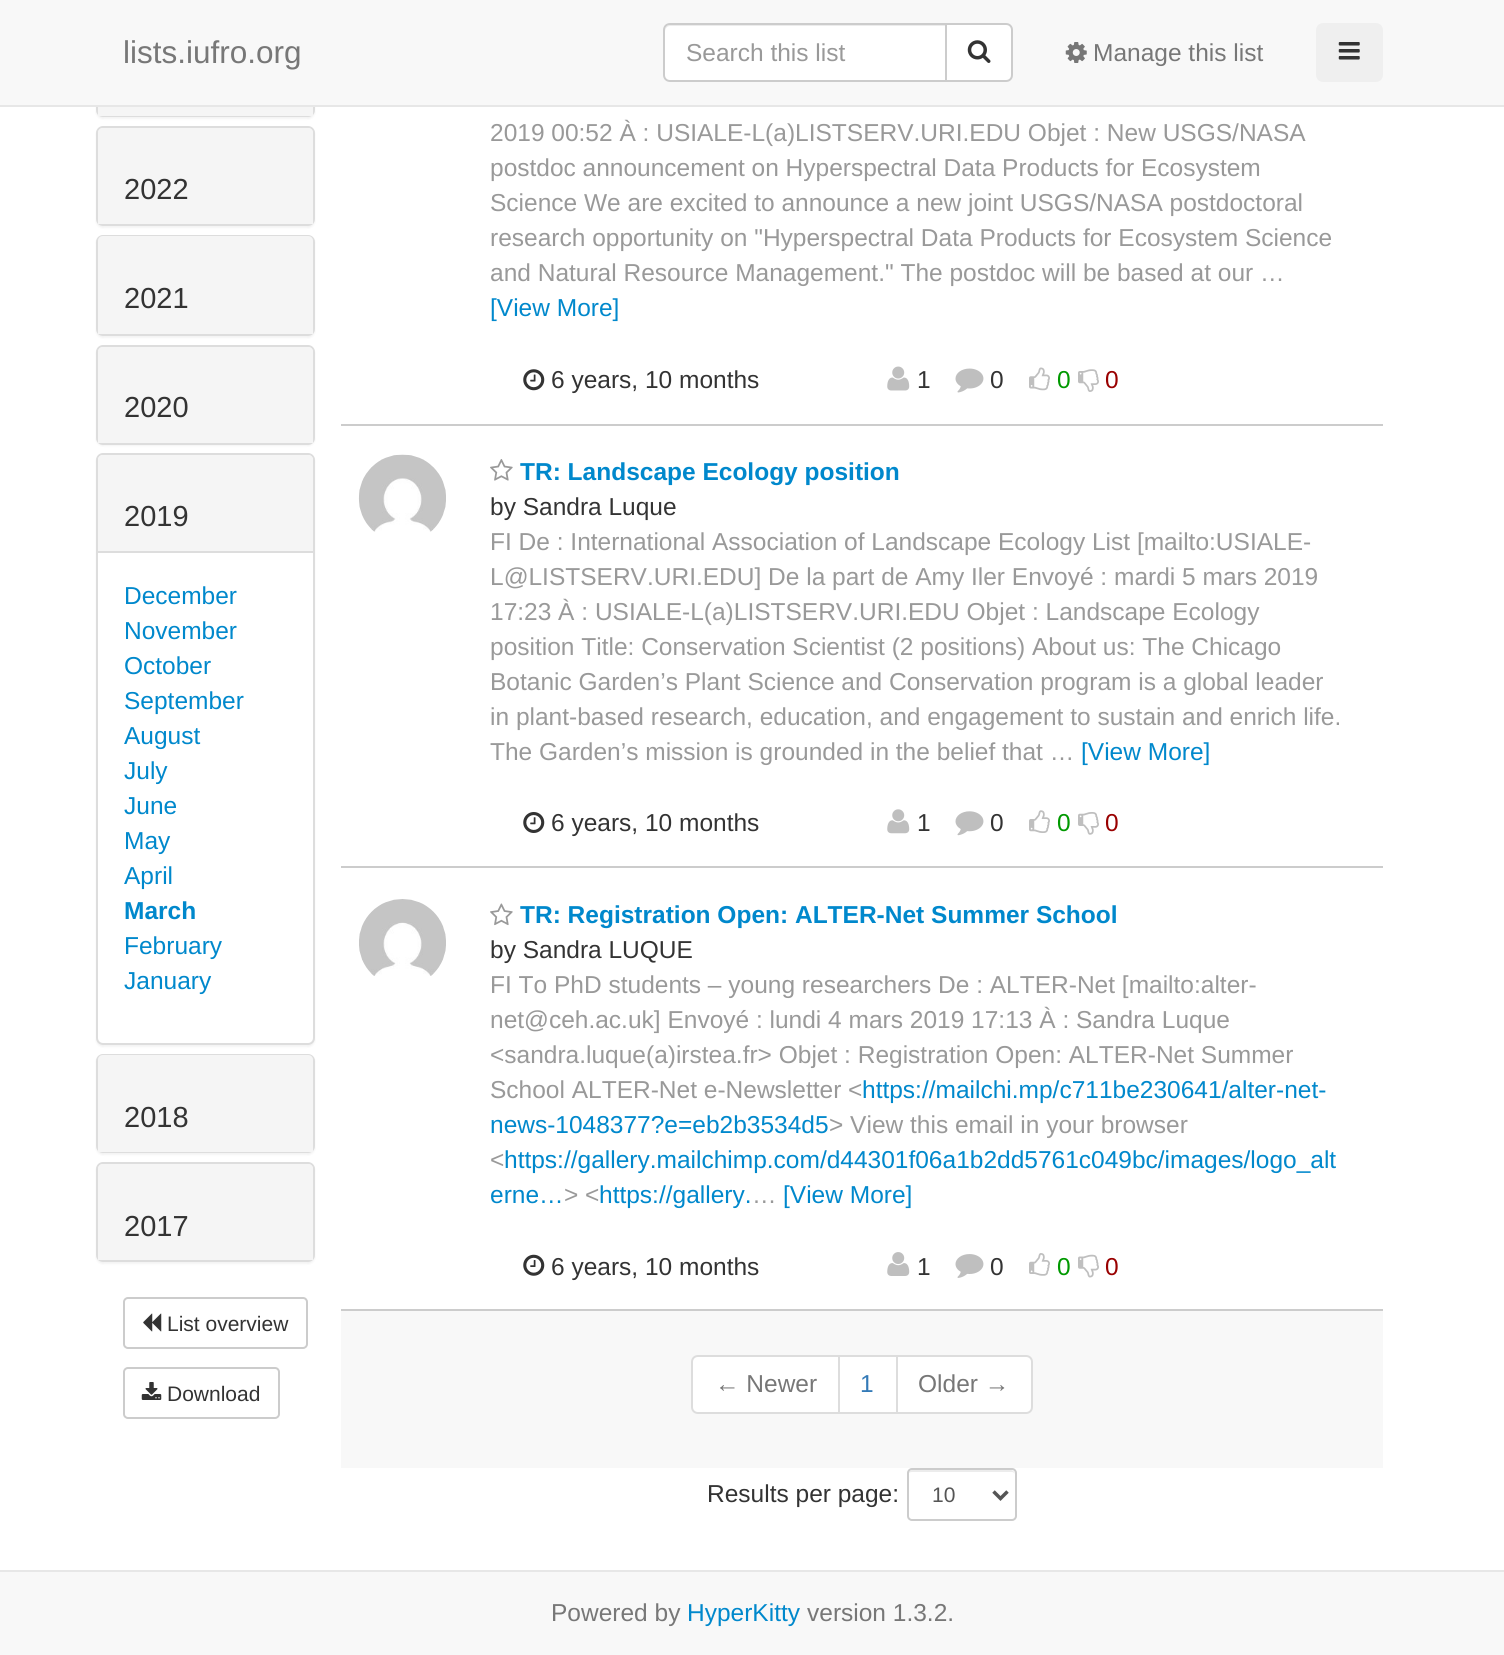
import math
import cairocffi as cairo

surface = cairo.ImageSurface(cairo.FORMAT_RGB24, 1504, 1655)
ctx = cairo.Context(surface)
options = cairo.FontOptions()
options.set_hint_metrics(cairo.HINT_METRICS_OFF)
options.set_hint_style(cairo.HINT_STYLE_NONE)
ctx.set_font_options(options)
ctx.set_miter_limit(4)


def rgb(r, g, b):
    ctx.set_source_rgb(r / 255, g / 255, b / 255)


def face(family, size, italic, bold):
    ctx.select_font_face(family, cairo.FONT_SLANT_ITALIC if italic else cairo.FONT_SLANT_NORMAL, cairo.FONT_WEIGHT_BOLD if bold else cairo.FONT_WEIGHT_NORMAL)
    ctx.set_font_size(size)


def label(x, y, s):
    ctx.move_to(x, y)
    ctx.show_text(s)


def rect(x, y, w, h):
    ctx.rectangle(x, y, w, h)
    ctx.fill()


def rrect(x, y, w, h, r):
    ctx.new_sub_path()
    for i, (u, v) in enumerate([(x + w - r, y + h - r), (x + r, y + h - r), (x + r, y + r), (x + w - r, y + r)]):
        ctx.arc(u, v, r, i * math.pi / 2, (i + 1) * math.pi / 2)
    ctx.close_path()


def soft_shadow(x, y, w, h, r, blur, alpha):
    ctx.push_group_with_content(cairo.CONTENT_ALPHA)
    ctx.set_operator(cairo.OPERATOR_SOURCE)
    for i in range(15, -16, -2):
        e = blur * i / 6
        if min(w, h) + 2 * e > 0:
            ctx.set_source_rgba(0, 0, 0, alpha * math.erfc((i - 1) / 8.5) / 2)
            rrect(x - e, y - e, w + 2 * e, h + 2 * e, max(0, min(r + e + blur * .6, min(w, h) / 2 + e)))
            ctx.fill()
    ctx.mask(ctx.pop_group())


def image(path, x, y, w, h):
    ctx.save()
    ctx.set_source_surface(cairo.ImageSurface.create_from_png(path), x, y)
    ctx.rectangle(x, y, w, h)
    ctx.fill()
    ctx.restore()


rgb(255, 255, 255)
ctx.paint()
rgb(0, 0, 0)
soft_shadow(96, 19, 219, 100, 7, 1, 0.05)
rrect(97, 19, 217, 97, 6)
rgb(221, 221, 221)
ctx.stroke()
rgb(248, 248, 248)
rect(0, 0, 1504, 105)
rgb(231, 231, 231)
rect(0, 105, 1504, 2)
face('Liberation Sans', 31.5, 0, 0)
rgb(119, 119, 119)
label(123, 63, 'lists.iufro.org')
rgb(255, 255, 255)
ctx.new_path()
ctx.move_to(670, 23)
ctx.line_to(947, 23)
ctx.line_to(947, 82)
ctx.line_to(670, 82)
ctx.curve_to(666, 82, 663, 79, 663, 75)
ctx.line_to(663, 30)
ctx.curve_to(663, 26, 666, 23, 670, 23)
ctx.close_path()
ctx.fill()
rgb(236, 236, 236)
ctx.new_path()
ctx.move_to(670, 26)
ctx.line_to(945, 26)
ctx.line_to(945, 25)
ctx.line_to(669, 25)
ctx.curve_to(665, 26, 665, 29, 665, 32)
ctx.curve_to(665, 29, 667, 26, 670, 26)
ctx.close_path()
ctx.fill()
ctx.new_path()
ctx.move_to(670, 24)
ctx.line_to(946, 24)
ctx.line_to(946, 81)
ctx.line_to(670, 81)
ctx.curve_to(666.5, 81, 664, 78.5, 664, 75)
ctx.line_to(664, 30)
ctx.curve_to(664, 26.5, 666.5, 24, 670, 24)
ctx.close_path()
rgb(204, 204, 204)
ctx.stroke()
face('Liberation Sans', 24.5, 0, 0)
rgb(153, 153, 153)
label(686, 61, 'Search this list')
rgb(255, 255, 255)
ctx.new_path()
ctx.move_to(946, 24)
ctx.line_to(1006, 24)
ctx.curve_to(1009.5, 24, 1012, 26.5, 1012, 30)
ctx.line_to(1012, 75)
ctx.curve_to(1012, 78.5, 1009.5, 81, 1006, 81)
ctx.line_to(946, 81)
ctx.close_path()
ctx.fill_preserve()
rgb(204, 204, 204)
ctx.stroke()
image('image0.png', 967, 40, 24, 23)
image('image1.png', 1065, 42, 22, 21)
rgb(119, 119, 119)
label(1093, 61, 'Manage this list')
rgb(239, 239, 239)
rrect(1316, 23, 67, 59, 7)
ctx.fill()
image('image2.png', 1338, 42, 22, 18)
rgb(245, 245, 245)
rect(98, 107, 215, 9)
rgb(0, 0, 0)
soft_shadow(96, 128, 219, 100, 7, 1, 0.05)
rrect(97, 127, 217, 98, 6)
rgb(221, 221, 221)
ctx.stroke()
rgb(245, 245, 245)
ctx.new_path()
ctx.move_to(103, 128)
ctx.line_to(308, 128)
ctx.curve_to(311, 128, 313, 130, 313, 133)
ctx.line_to(313, 224)
ctx.line_to(98, 224)
ctx.line_to(98, 133)
ctx.curve_to(98, 130, 100, 128, 103, 128)
ctx.close_path()
ctx.fill()
face('Liberation Sans', 29, 0, 0)
rgb(51, 51, 51)
label(124, 199, '2022')
rgb(0, 0, 0)
soft_shadow(96, 236, 219, 102, 7, 1, 0.05)
rrect(97, 236, 217, 99, 6)
rgb(221, 221, 221)
ctx.stroke()
rgb(245, 245, 245)
ctx.new_path()
ctx.move_to(103, 236)
ctx.line_to(308, 236)
ctx.curve_to(311, 236, 313, 238, 313, 241)
ctx.line_to(313, 334)
ctx.line_to(98, 334)
ctx.line_to(98, 241)
ctx.curve_to(98, 238, 100, 236, 103, 236)
ctx.close_path()
ctx.fill()
rgb(51, 51, 51)
label(124, 308, '2021')
rgb(0, 0, 0)
soft_shadow(96, 347, 219, 99, 7, 1, 0.05)
rrect(97, 346, 217, 98, 6)
rgb(221, 221, 221)
ctx.stroke()
rgb(245, 245, 245)
ctx.new_path()
ctx.move_to(103, 347)
ctx.line_to(308, 347)
ctx.curve_to(311, 347, 313, 349, 313, 352)
ctx.line_to(313, 443)
ctx.line_to(98, 443)
ctx.line_to(98, 352)
ctx.curve_to(98, 349, 100, 347, 103, 347)
ctx.close_path()
ctx.fill()
rgb(51, 51, 51)
label(124, 417, '2020')
rgb(0, 0, 0)
soft_shadow(96, 455, 219, 592, 7, 1, 0.05)
rgb(255, 255, 255)
rrect(97, 454, 217, 590, 6)
ctx.fill_preserve()
rgb(221, 221, 221)
ctx.stroke()
rgb(245, 245, 245)
ctx.new_path()
ctx.move_to(103, 455)
ctx.line_to(308, 455)
ctx.curve_to(311, 455, 313, 457, 313, 460)
ctx.line_to(313, 551)
ctx.line_to(98, 551)
ctx.line_to(98, 460)
ctx.curve_to(98, 457, 100, 455, 103, 455)
ctx.close_path()
ctx.fill()
rgb(51, 51, 51)
label(124, 526, '2019')
rgb(221, 221, 221)
rect(98, 551, 215, 2)
face('Liberation Sans', 24.5, 0, 0)
rgb(0, 136, 204)
label(124, 604, 'December')
label(124, 639, 'November')
label(124, 674, 'October')
label(124, 709, 'September')
label(124, 744, 'August')
label(124, 779, 'July')
label(124, 814, 'June')
label(124, 849, 'May')
label(124, 884, 'April')
face('Liberation Sans', 24.5, 0, 1)
label(124, 919, 'March')
face('Liberation Sans', 24.5, 0, 0)
label(124, 954, 'February')
label(124, 989, 'January')
rgb(0, 0, 0)
soft_shadow(96, 1055, 219, 100, 7, 1, 0.05)
rrect(97, 1055, 217, 97, 6)
rgb(221, 221, 221)
ctx.stroke()
rgb(245, 245, 245)
ctx.new_path()
ctx.move_to(103, 1055)
ctx.line_to(308, 1055)
ctx.curve_to(311, 1055, 313, 1057, 313, 1060)
ctx.line_to(313, 1152)
ctx.line_to(98, 1152)
ctx.line_to(98, 1060)
ctx.curve_to(98, 1057, 100, 1055, 103, 1055)
ctx.close_path()
ctx.fill()
face('Liberation Sans', 29, 0, 0)
rgb(51, 51, 51)
label(124, 1127, '2018')
rgb(0, 0, 0)
soft_shadow(96, 1164, 219, 100, 7, 1, 0.05)
rrect(97, 1163, 217, 98, 6)
rgb(221, 221, 221)
ctx.stroke()
rgb(245, 245, 245)
ctx.new_path()
ctx.move_to(103, 1164)
ctx.line_to(308, 1164)
ctx.curve_to(311, 1164, 313, 1166, 313, 1169)
ctx.line_to(313, 1260)
ctx.line_to(98, 1260)
ctx.line_to(98, 1169)
ctx.curve_to(98, 1166, 100, 1164, 103, 1164)
ctx.close_path()
ctx.fill()
rgb(51, 51, 51)
label(124, 1236, '2017')
rrect(124, 1298, 183, 50, 4)
rgb(204, 204, 204)
ctx.stroke()
image('image3.png', 143, 1313, 19, 19)
face('Liberation Sans', 21, 0, 0)
rgb(51, 51, 51)
label(167, 1331, 'List overview')
rrect(124, 1368, 155, 50, 4)
rgb(204, 204, 204)
ctx.stroke()
image('image4.png', 141, 1382, 21, 18)
rgb(51, 51, 51)
label(167, 1401, 'Download')
rgb(204, 204, 204)
rect(341, 424, 1042, 2)
face('Liberation Sans', 24.5, 0, 0)
rgb(153, 153, 153)
label(490, 141, '2019 00:52 À : USIALE-L(a)LISTSERV.URI.EDU Objet : New USGS/NASA')
label(490, 176, 'postdoc announcement on Hyperspectral Data Products for Ecosystem')
label(490, 211, 'Science We are excited to announce a new joint USGS/NASA postdoctoral')
label(490, 246, 'research opportunity on "Hyperspectral Data Products for Ecosystem Science')
label(490, 281, 'and Natural Resource Management." The postdoc will be based at our …')
rgb(0, 136, 204)
label(490, 316, '[View More]')
image('image5.png', 523, 369, 22, 22)
rgb(51, 51, 51)
label(551, 388, '6 years, 10 months')
image('image6.png', 887, 366, 23, 25)
label(917, 388, '1')
image('image7.png', 955, 368, 29, 25)
label(990, 388, '0')
image('image8.png', 1029, 367, 21, 24)
rgb(0, 153, 0)
label(1057, 388, '0')
image('image9.png', 1078, 369, 21, 23)
rgb(153, 0, 0)
label(1105, 388, '0')
rgb(204, 204, 204)
rect(341, 866, 1042, 2)
image('image10.png', 358, 454, 88, 78)
image('image11.png', 490, 459, 23, 22)
face('Liberation Sans', 24.5, 0, 1)
rgb(0, 136, 204)
label(520, 480, 'TR: Landscape Ecology position')
face('Liberation Sans', 24.5, 0, 0)
rgb(51, 51, 51)
label(490, 515, 'by Sandra Luque')
rgb(153, 153, 153)
label(490, 550, 'FI De : International Association of Landscape Ecology List [mailto:USIALE-')
label(490, 585, 'L@LISTSERV.URI.EDU] De la part de Amy Iler Envoyé : mardi 5 mars 2019')
label(490, 620, '17:23 À : USIALE-L(a)LISTSERV.URI.EDU Objet : Landscape Ecology')
label(490, 655, 'position Title: Conservation Scientist (2 positions) About us: The Chicago')
label(490, 690, 'Botanic Garden’s Plant Science and Conservation program is a global leader')
label(490, 725, 'in plant-based research, education, and engagement to sustain and enrich life.')
label(490, 760, 'The Garden’s mission is grounded in the belief that …')
rgb(0, 136, 204)
label(1081, 760, '[View More]')
image('image12.png', 523, 812, 22, 21)
rgb(51, 51, 51)
label(551, 831, '6 years, 10 months')
image('image13.png', 887, 809, 23, 25)
label(917, 831, '1')
image('image14.png', 955, 811, 29, 25)
label(990, 831, '0')
image('image15.png', 1029, 810, 21, 23)
rgb(0, 153, 0)
label(1057, 831, '0')
image('image16.png', 1078, 812, 21, 23)
rgb(153, 0, 0)
label(1105, 831, '0')
rgb(204, 204, 204)
rect(341, 1309, 1042, 2)
image('image17.png', 359, 899, 87, 77)
image('image18.png', 490, 903, 23, 23)
face('Liberation Sans', 24.5, 0, 1)
rgb(0, 136, 204)
label(520, 923, 'TR: Registration Open: ALTER-Net Summer School')
face('Liberation Sans', 24.5, 0, 0)
rgb(51, 51, 51)
label(490, 958, 'by Sandra LUQUE')
rgb(153, 153, 153)
label(490, 993, 'FI To PhD students – young researchers De : ALTER-Net [mailto:alter-')
label(490, 1028, 'net@ceh.ac.uk] Envoyé : lundi 4 mars 2019 17:13 À : Sandra Luque')
label(490, 1063, '<sandra.luque(a)irstea.fr> Objet : Registration Open: ALTER-Net Summer')
label(490, 1098, 'School ALTER-Net e-Newsletter <')
rgb(0, 136, 204)
label(862, 1098, 'https://mailchi.mp/c711be230641/alter-net-')
label(490, 1133, 'news-1048377?e=eb2b3534d5')
rgb(153, 153, 153)
label(829, 1133, '> View this email in your browser')
label(490, 1168, '<')
rgb(0, 136, 204)
label(504, 1168, 'https://gallery.mailchimp.com/d44301f06a1b2dd5761c049bc/images/logo_alt')
label(490, 1203, 'erne…')
rgb(153, 153, 153)
label(564, 1203, '> <')
rgb(0, 136, 204)
label(599, 1203, 'https://gallery.')
rgb(153, 153, 153)
label(752, 1203, '…')
rgb(0, 136, 204)
label(783, 1203, '[View More]')
image('image19.png', 523, 1254, 22, 22)
rgb(51, 51, 51)
label(551, 1275, '6 years, 10 months')
image('image20.png', 887, 1252, 23, 24)
label(917, 1275, '1')
image('image21.png', 955, 1254, 29, 24)
label(990, 1275, '0')
image('image22.png', 1029, 1253, 21, 23)
rgb(0, 153, 0)
label(1057, 1275, '0')
image('image23.png', 1078, 1254, 21, 24)
rgb(153, 0, 0)
label(1105, 1275, '0')
rgb(248, 248, 248)
rect(341, 1311, 1042, 157)
rgb(255, 255, 255)
ctx.new_path()
ctx.move_to(698, 1356)
ctx.line_to(839, 1356)
ctx.line_to(839, 1413)
ctx.line_to(698, 1413)
ctx.curve_to(694.5, 1413, 692, 1410.5, 692, 1407)
ctx.line_to(692, 1362)
ctx.curve_to(692, 1358.5, 694.5, 1356, 698, 1356)
ctx.close_path()
ctx.fill_preserve()
rgb(221, 221, 221)
ctx.stroke()
rgb(119, 119, 119)
label(715, 1392, '← Newer')
rgb(255, 255, 255)
ctx.rectangle(839, 1356, 58, 57)
ctx.fill_preserve()
rgb(221, 221, 221)
ctx.stroke()
rgb(51, 122, 183)
label(860, 1392, '1')
rgb(255, 255, 255)
ctx.new_path()
ctx.move_to(897, 1356)
ctx.line_to(1026, 1356)
ctx.curve_to(1029.5, 1356, 1032, 1358.5, 1032, 1362)
ctx.line_to(1032, 1407)
ctx.curve_to(1032, 1410.5, 1029.5, 1413, 1026, 1413)
ctx.line_to(897, 1413)
ctx.close_path()
ctx.fill_preserve()
rgb(221, 221, 221)
ctx.stroke()
rgb(119, 119, 119)
label(918, 1392, 'Older →')
rgb(51, 51, 51)
label(707, 1502, 'Results per page:')
rgb(236, 236, 236)
ctx.new_path()
ctx.move_to(912, 1472)
ctx.line_to(1012, 1472)
ctx.curve_to(1013, 1472, 1015, 1473, 1015, 1475)
ctx.curve_to(1015, 1466, 998, 1470, 994, 1470)
ctx.line_to(928, 1470)
ctx.curve_to(925, 1470, 908, 1466, 908, 1475)
ctx.curve_to(908, 1473, 910, 1472, 912, 1472)
ctx.close_path()
ctx.fill()
rrect(908, 1469, 108, 51, 4)
rgb(204, 204, 204)
ctx.stroke()
ctx.new_path()
ctx.move_to(993.5, 1491.5)
ctx.line_to(1000.5, 1498.5)
ctx.line_to(1007.5, 1491.5)
rgb(85, 85, 85)
ctx.set_line_width(3.5)
ctx.stroke()
face('Liberation Sans', 21, 0, 0)
label(932, 1502, '10')
rgb(248, 248, 248)
rect(0, 1572, 1504, 83)
rgb(231, 231, 231)
rect(0, 1570, 1504, 2)
face('Liberation Sans', 24.5, 0, 0)
rgb(119, 119, 119)
label(551, 1621, 'Powered by')
rgb(0, 136, 204)
label(687, 1621, 'HyperKitty')
rgb(119, 119, 119)
label(807, 1621, 'version 1.3.2.')
surface.write_to_png('render.png')
